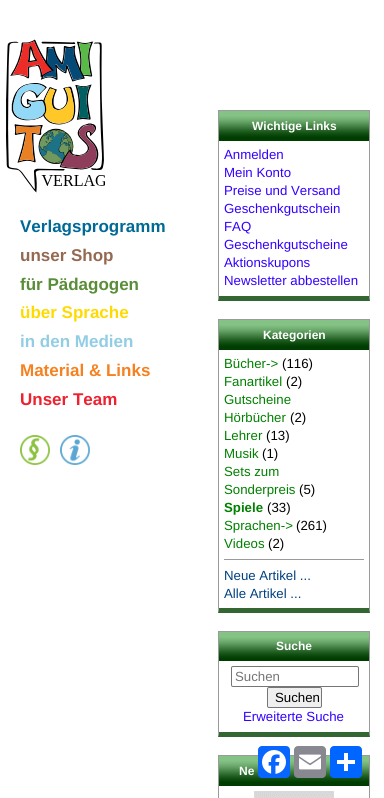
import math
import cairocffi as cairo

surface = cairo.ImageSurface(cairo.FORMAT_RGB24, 384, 798)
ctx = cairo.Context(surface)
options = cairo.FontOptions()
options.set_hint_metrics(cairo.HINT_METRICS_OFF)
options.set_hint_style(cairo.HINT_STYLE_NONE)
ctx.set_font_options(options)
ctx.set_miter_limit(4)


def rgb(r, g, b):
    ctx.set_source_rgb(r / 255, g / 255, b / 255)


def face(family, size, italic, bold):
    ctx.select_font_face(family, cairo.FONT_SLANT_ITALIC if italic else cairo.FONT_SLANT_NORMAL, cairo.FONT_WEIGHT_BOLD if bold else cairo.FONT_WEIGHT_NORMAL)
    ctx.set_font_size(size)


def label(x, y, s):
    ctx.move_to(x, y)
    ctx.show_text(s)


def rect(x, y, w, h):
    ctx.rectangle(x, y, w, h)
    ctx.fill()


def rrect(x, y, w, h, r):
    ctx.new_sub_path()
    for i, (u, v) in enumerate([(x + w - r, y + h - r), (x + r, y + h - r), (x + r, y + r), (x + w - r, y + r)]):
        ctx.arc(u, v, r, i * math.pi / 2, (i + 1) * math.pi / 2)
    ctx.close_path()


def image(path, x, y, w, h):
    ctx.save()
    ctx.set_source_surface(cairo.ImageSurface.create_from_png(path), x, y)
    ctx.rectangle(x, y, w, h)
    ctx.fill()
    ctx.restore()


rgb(255, 255, 255)
ctx.paint()
image('image0.png', 6, 39, 99, 154)
rgb(154, 154, 154)
rect(218, 110, 152, 1)
ctx.new_path()
ctx.move_to(370, 110)
ctx.line_to(370, 301)
ctx.line_to(369, 296)
ctx.line_to(369, 111)
ctx.close_path()
ctx.fill()
rgb(51, 102, 51)
ctx.new_path()
ctx.move_to(370, 301)
ctx.line_to(218, 301)
ctx.line_to(219, 296)
ctx.line_to(369, 296)
ctx.close_path()
ctx.fill()
rgb(154, 154, 154)
ctx.new_path()
ctx.move_to(218, 301)
ctx.line_to(218, 110)
ctx.line_to(219, 111)
ctx.line_to(219, 296)
ctx.close_path()
ctx.fill()
image('image1.png', 219, 111, 150, 30)
face('Liberation Sans', 12, 0, 1)
rgb(255, 255, 255)
label(252, 130, 'Wichtige Links')
face('Liberation Sans', 13.25, 0, 0)
rgb(51, 0, 255)
label(224, 159, 'Anmelden')
label(224, 177, 'Mein Konto')
label(224, 195, 'Preise und Versand')
label(224, 213, 'Geschenkgutschein')
label(224, 231, 'FAQ')
label(224, 249, 'Geschenkgutscheine')
label(224, 267, 'Aktionskupons')
label(224, 285, 'Newsletter abbestellen')
rgb(154, 154, 154)
rect(218, 319, 152, 1)
ctx.new_path()
ctx.move_to(370, 319)
ctx.line_to(370, 613)
ctx.line_to(369, 608)
ctx.line_to(369, 320)
ctx.close_path()
ctx.fill()
rgb(51, 102, 51)
ctx.new_path()
ctx.move_to(370, 613)
ctx.line_to(218, 613)
ctx.line_to(219, 608)
ctx.line_to(369, 608)
ctx.close_path()
ctx.fill()
rgb(154, 154, 154)
ctx.new_path()
ctx.move_to(218, 613)
ctx.line_to(218, 319)
ctx.line_to(219, 320)
ctx.line_to(219, 608)
ctx.close_path()
ctx.fill()
image('image1.png', 219, 320, 150, 30)
face('Liberation Sans', 12, 0, 1)
rgb(255, 255, 255)
label(263, 339, 'Kategorien')
face('Liberation Sans', 13.25, 0, 0)
rgb(0, 128, 0)
label(224, 368, 'Bücher->')
rgb(0, 0, 0)
label(282, 368, '(116)')
rgb(0, 128, 0)
label(224, 386, 'Fanartikel')
rgb(0, 0, 0)
label(286, 386, '(2)')
rgb(0, 128, 0)
label(224, 404, 'Gutscheine')
label(224, 422, 'Hörbücher')
rgb(0, 0, 0)
label(290, 422, '(2)')
rgb(0, 128, 0)
label(224, 440, 'Lehrer')
rgb(0, 0, 0)
label(266, 440, '(13)')
rgb(0, 128, 0)
label(224, 458, 'Musik')
rgb(0, 0, 0)
label(262, 458, '(1)')
rgb(0, 128, 0)
label(224, 476, 'Sets zum')
label(224, 494, 'Sonderpreis')
rgb(0, 0, 0)
label(299, 494, '(5)')
face('Liberation Sans', 13.25, 0, 1)
rgb(0, 128, 0)
label(224, 512, 'Spiele')
face('Liberation Sans', 13.25, 0, 0)
rgb(0, 0, 0)
label(267, 512, '(33)')
rgb(0, 128, 0)
label(224, 530, 'Sprachen->')
rgb(0, 0, 0)
label(296, 530, '(261)')
rgb(0, 128, 0)
label(224, 548, 'Videos')
rgb(0, 0, 0)
label(268, 548, '(2)')
rgb(154, 154, 154)
rect(224, 559, 140, 1)
rgb(0, 64, 128)
label(224, 580, 'Neue Artikel ...')
label(224, 598, 'Alle Artikel ...')
rgb(154, 154, 154)
rect(218, 631, 152, 1)
ctx.new_path()
ctx.move_to(370, 631)
ctx.line_to(370, 737)
ctx.line_to(369, 732)
ctx.line_to(369, 632)
ctx.close_path()
ctx.fill()
rgb(51, 102, 51)
ctx.new_path()
ctx.move_to(370, 737)
ctx.line_to(218, 737)
ctx.line_to(219, 732)
ctx.line_to(369, 732)
ctx.close_path()
ctx.fill()
rgb(154, 154, 154)
ctx.new_path()
ctx.move_to(218, 737)
ctx.line_to(218, 631)
ctx.line_to(219, 632)
ctx.line_to(219, 732)
ctx.close_path()
ctx.fill()
image('image2.png', 219, 632, 150, 29)
face('Liberation Sans', 12, 0, 1)
rgb(255, 255, 255)
label(276, 650, 'Suche')
rrect(231.5, 666.5, 127, 20, 1.5)
rgb(118, 118, 118)
ctx.set_line_width(1)
ctx.stroke()
face('Liberation Sans', 13.25, 0, 0)
rgb(117, 117, 117)
label(235, 681, 'Suchen')
rgb(239, 239, 239)
rrect(267.5, 687.5, 54, 20, 1.5)
ctx.fill_preserve()
rgb(118, 118, 118)
ctx.stroke()
rgb(0, 0, 0)
label(275, 702, 'Suchen')
rgb(51, 0, 255)
label(243, 721, 'Erweiterte Suche')
rgb(154, 154, 154)
rect(218, 755, 152, 1)
ctx.new_path()
ctx.move_to(370, 755)
ctx.line_to(370, 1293)
ctx.line_to(369, 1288)
ctx.line_to(369, 756)
ctx.close_path()
ctx.fill()
ctx.new_path()
ctx.move_to(218, 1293)
ctx.line_to(218, 755)
ctx.line_to(219, 756)
ctx.line_to(219, 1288)
ctx.close_path()
ctx.fill()
image('image1.png', 219, 756, 150, 30)
face('Liberation Sans', 12, 0, 1)
rgb(255, 255, 255)
label(239, 775, 'Ne')
image('image3.png', 254, 791, 80, 7)
face('Liberation Sans', 17, 0, 1)
rgb(0, 105, 150)
label(20, 232, 'Verlagsprogramm')
rgb(149, 105, 81)
label(20, 261, 'unser Shop')
rgb(89, 141, 56)
label(20, 290, 'für Pädagogen')
rgb(253, 219, 1)
label(20, 318, 'über Sprache')
rgb(145, 205, 229)
label(20, 347, 'in den Medien')
rgb(245, 129, 32)
label(20, 376, 'Material & Links')
rgb(236, 34, 48)
label(20, 405, 'Unser Team')
image('image4.png', 20, 435, 30, 30)
image('image5.png', 60, 435, 30, 30)
rgb(8, 102, 255)
rrect(258, 746, 32, 32, 4)
ctx.fill()
image('image6.png', 262, 750, 24, 24)
rgb(136, 137, 144)
rrect(294, 746, 32, 32, 4)
ctx.fill()
image('image7.png', 299, 754, 22, 16)
rgb(1, 102, 255)
rrect(330, 746, 32, 32, 4)
ctx.fill()
rgb(255, 255, 255)
rect(344, 753, 4, 18)
rect(337, 760, 18, 4)
surface.write_to_png('render.png')
